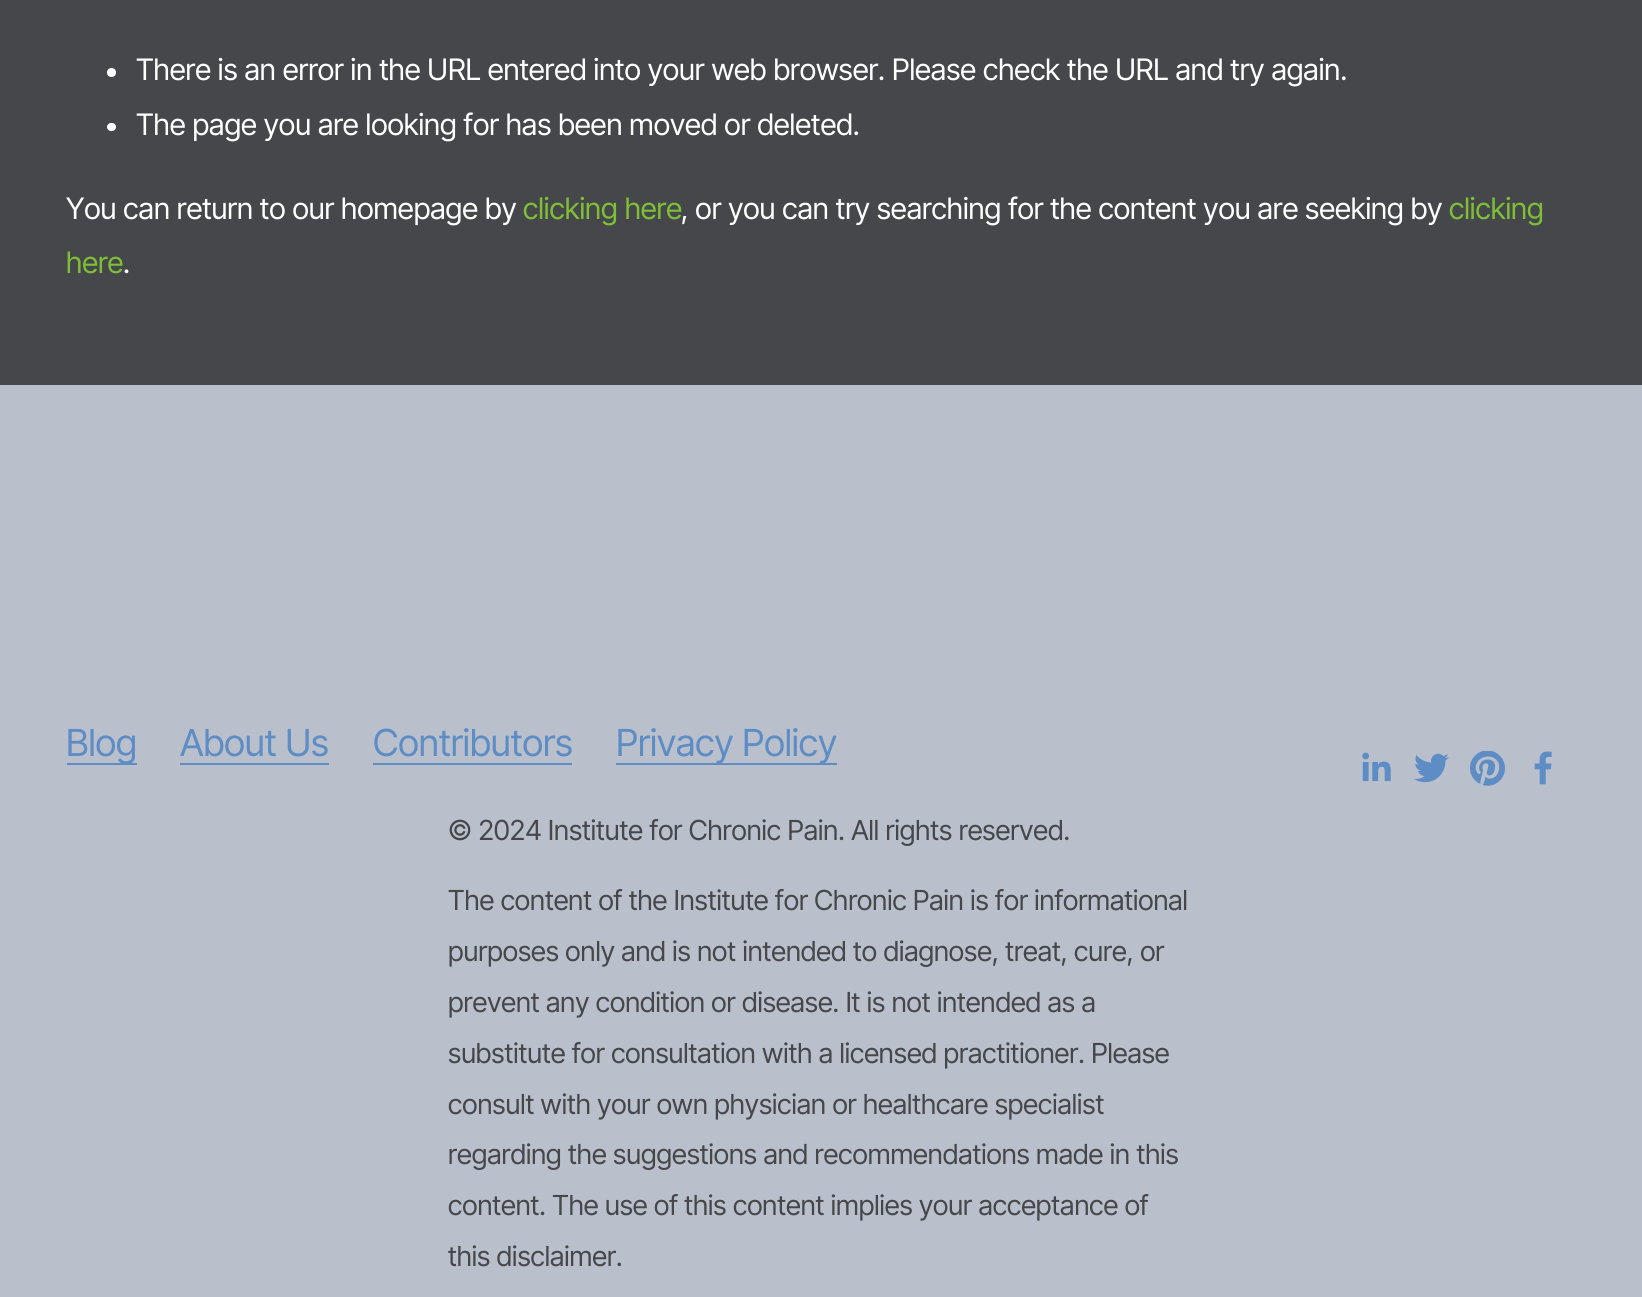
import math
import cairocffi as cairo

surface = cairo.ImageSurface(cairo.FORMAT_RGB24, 1642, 1297)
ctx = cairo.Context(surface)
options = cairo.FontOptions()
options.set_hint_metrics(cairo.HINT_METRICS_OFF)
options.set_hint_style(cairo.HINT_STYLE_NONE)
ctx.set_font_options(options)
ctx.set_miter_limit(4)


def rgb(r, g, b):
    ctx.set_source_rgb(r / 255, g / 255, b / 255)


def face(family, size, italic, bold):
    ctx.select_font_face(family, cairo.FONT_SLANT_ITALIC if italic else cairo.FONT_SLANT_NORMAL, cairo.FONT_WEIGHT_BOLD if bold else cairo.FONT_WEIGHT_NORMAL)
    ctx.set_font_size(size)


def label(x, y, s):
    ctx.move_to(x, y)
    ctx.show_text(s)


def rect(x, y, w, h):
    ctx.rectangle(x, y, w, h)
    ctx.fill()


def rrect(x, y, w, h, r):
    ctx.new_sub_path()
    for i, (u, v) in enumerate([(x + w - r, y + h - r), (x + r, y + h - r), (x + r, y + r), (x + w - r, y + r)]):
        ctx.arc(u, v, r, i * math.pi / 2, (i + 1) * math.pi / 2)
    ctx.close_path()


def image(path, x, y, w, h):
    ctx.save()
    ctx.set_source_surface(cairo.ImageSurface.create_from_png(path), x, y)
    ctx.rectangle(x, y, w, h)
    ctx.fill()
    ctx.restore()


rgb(69, 71, 74)
ctx.paint()
rgb(255, 255, 255)
ctx.arc(111.5, 72.5, 4.5, 0, 2 * math.pi)
ctx.fill()
face('Inter Tight', 29.6, 0, 0)
label(136, 80, 'There is an error in the URL entered into your web browser. Please check the URL and try again.')
rrect(107, 123, 9, 8, 4)
ctx.fill()
label(136, 135, 'The page you are looking for has been moved or deleted.')
label(66, 219, 'You can return to our homepage by')
rgb(126, 191, 55)
label(523, 219, 'clicking here')
rgb(255, 255, 255)
label(681, 219, ', or you can try searching for the content you are seeking by')
rgb(126, 191, 55)
label(1449, 219, 'clicking')
label(66, 273, 'here')
rgb(255, 255, 255)
label(123, 273, '.')
rgb(185, 192, 203)
rect(0, 385, 1642, 912)
rgb(94, 140, 196)
rect(67, 763, 70, 2)
face('Inter Tight', 37.25, 0, 0)
label(66, 756, 'Blog')
label(180, 756, 'About Us')
rect(180, 763, 149, 2)
label(373, 756, 'Contributors')
rect(373, 763, 199, 2)
rect(616, 763, 221, 2)
label(616, 756, 'Privacy Policy')
image('image0.png', 1362, 752, 29, 30)
image('image1.png', 1414, 753, 35, 30)
image('image2.png', 1470, 751, 35, 35)
image('image3.png', 1534, 751, 18, 34)
face('Inter Tight', 27.6, 0, 0)
rgb(69, 71, 74)
label(448, 840, '© 2024 Institute for Chronic Pain. All rights reserved.')
label(448, 910, 'The content of the Institute for Chronic Pain is for informational')
label(448, 961, 'purposes only and is not intended to diagnose, treat, cure, or')
label(448, 1012, 'prevent any condition or disease. It is not intended as a')
label(448, 1063, 'substitute for consultation with a licensed practitioner. Please')
label(448, 1114, 'consult with your own physician or healthcare specialist')
label(448, 1164, 'regarding the suggestions and recommendations made in this')
label(448, 1215, 'content. The use of this content implies your acceptance of')
label(448, 1266, 'this disclaimer.')
surface.write_to_png('render.png')
